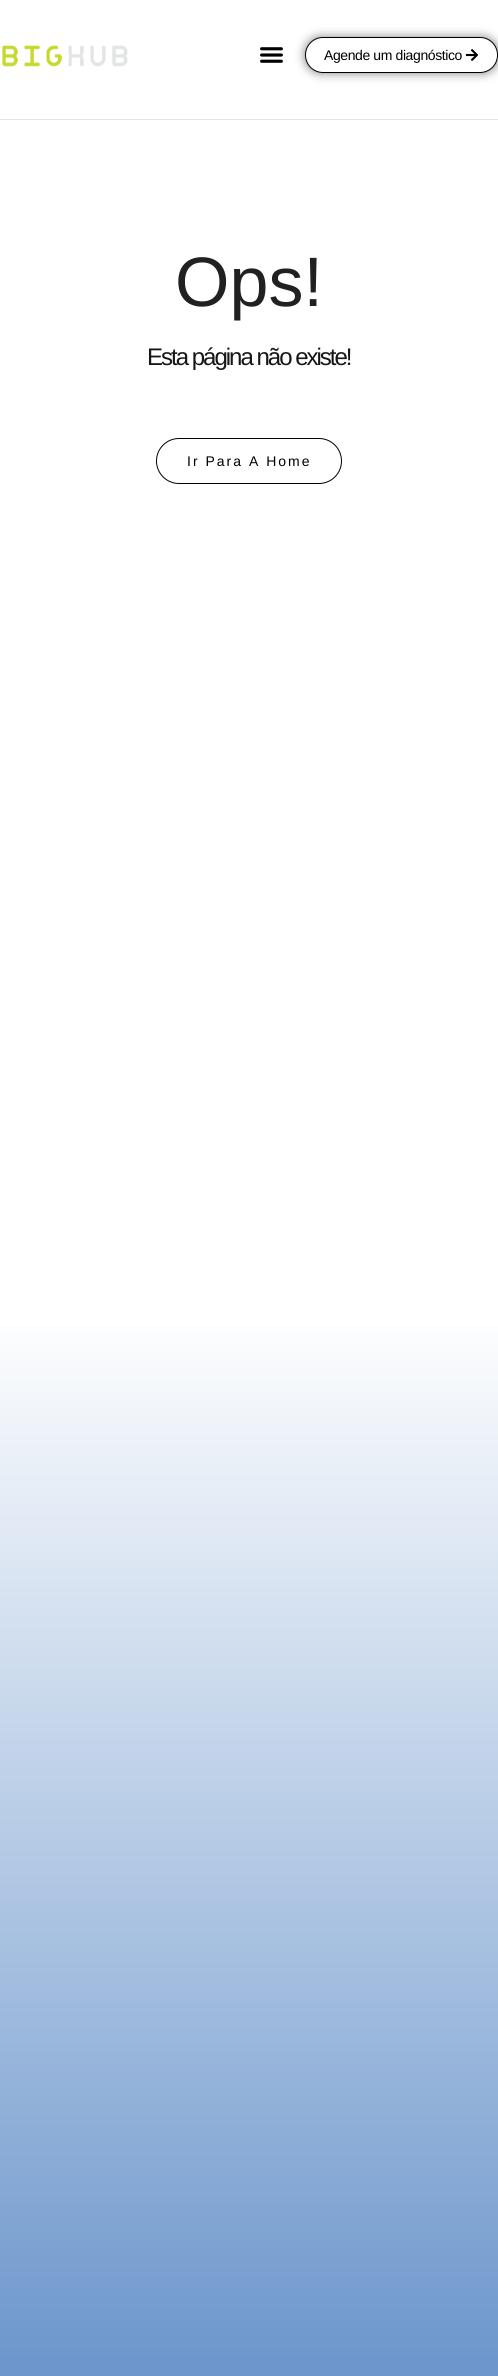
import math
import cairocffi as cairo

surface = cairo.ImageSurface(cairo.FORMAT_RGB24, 498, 2376)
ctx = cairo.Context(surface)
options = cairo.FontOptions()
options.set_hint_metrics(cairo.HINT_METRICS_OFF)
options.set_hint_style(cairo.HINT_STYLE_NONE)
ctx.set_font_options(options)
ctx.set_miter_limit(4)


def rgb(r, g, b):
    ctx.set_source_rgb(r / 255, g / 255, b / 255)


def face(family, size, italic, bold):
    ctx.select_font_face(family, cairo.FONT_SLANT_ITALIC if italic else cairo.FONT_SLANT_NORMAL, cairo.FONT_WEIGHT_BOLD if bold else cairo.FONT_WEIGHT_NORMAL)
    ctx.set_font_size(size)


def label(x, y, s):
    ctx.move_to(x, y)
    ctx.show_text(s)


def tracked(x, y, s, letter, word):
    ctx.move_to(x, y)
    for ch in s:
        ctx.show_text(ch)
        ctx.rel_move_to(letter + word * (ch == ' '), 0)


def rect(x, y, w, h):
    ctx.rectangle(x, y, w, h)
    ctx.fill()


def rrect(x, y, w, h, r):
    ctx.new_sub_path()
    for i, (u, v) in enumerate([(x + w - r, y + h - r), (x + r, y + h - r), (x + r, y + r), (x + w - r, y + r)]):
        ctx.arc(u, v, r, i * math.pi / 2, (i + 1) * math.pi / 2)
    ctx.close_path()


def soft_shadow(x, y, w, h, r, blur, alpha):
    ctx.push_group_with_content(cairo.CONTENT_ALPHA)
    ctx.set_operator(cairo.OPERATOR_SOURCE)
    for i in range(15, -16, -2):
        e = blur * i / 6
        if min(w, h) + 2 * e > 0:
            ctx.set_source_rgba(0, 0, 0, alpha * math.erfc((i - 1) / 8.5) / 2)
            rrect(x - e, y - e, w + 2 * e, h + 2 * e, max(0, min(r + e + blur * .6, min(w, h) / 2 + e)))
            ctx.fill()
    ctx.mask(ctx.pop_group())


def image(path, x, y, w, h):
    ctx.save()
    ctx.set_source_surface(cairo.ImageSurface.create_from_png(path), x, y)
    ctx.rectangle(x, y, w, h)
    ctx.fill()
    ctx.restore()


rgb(255, 255, 255)
ctx.paint()
rgb(228, 228, 230)
rect(0, 119, 498, 1)
image('image0.png', 2, 45, 126, 22)
image('image1.png', 260, 47, 23, 16)
rgb(0, 0, 0)
soft_shadow(305, 37, 193, 36, 18, 5, 0.5)
rgb(255, 255, 255)
rrect(305.5, 37.5, 192, 35, 17.5)
ctx.fill_preserve()
rgb(0, 0, 0)
ctx.set_line_width(1)
ctx.stroke()
face('Liberation Sans', 14, 0, 0)
tracked(324, 60, 'Agende um diagnóstico', -0.4, 0)
image('image2.png', 465, 49, 13, 12)
gradient = cairo.LinearGradient(249, 120, 249, 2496)
gradient.add_color_stop_rgba(0.5, 1, 1, 1, 1)
gradient.add_color_stop_rgba(1, 0.357, 0.541, 0.776, 1)
ctx.set_source(gradient)
rect(0, 1326, 498, 1050)
face('Liberation Sans', 70, 0, 0)
rgb(33, 33, 33)
label(175, 306, 'Ops!')
face('Liberation Sans', 24, 0, 0)
rgb(23, 21, 21)
tracked(147, 365, 'Esta página não existe!', -2, 0)
rrect(156.5, 438.5, 185, 45, 22.5)
rgb(0, 0, 0)
ctx.stroke()
face('Liberation Sans', 14, 0, 0)
tracked(187, 466, 'Ir Para A Home', 2, 0)
surface.write_to_png('render.png')
